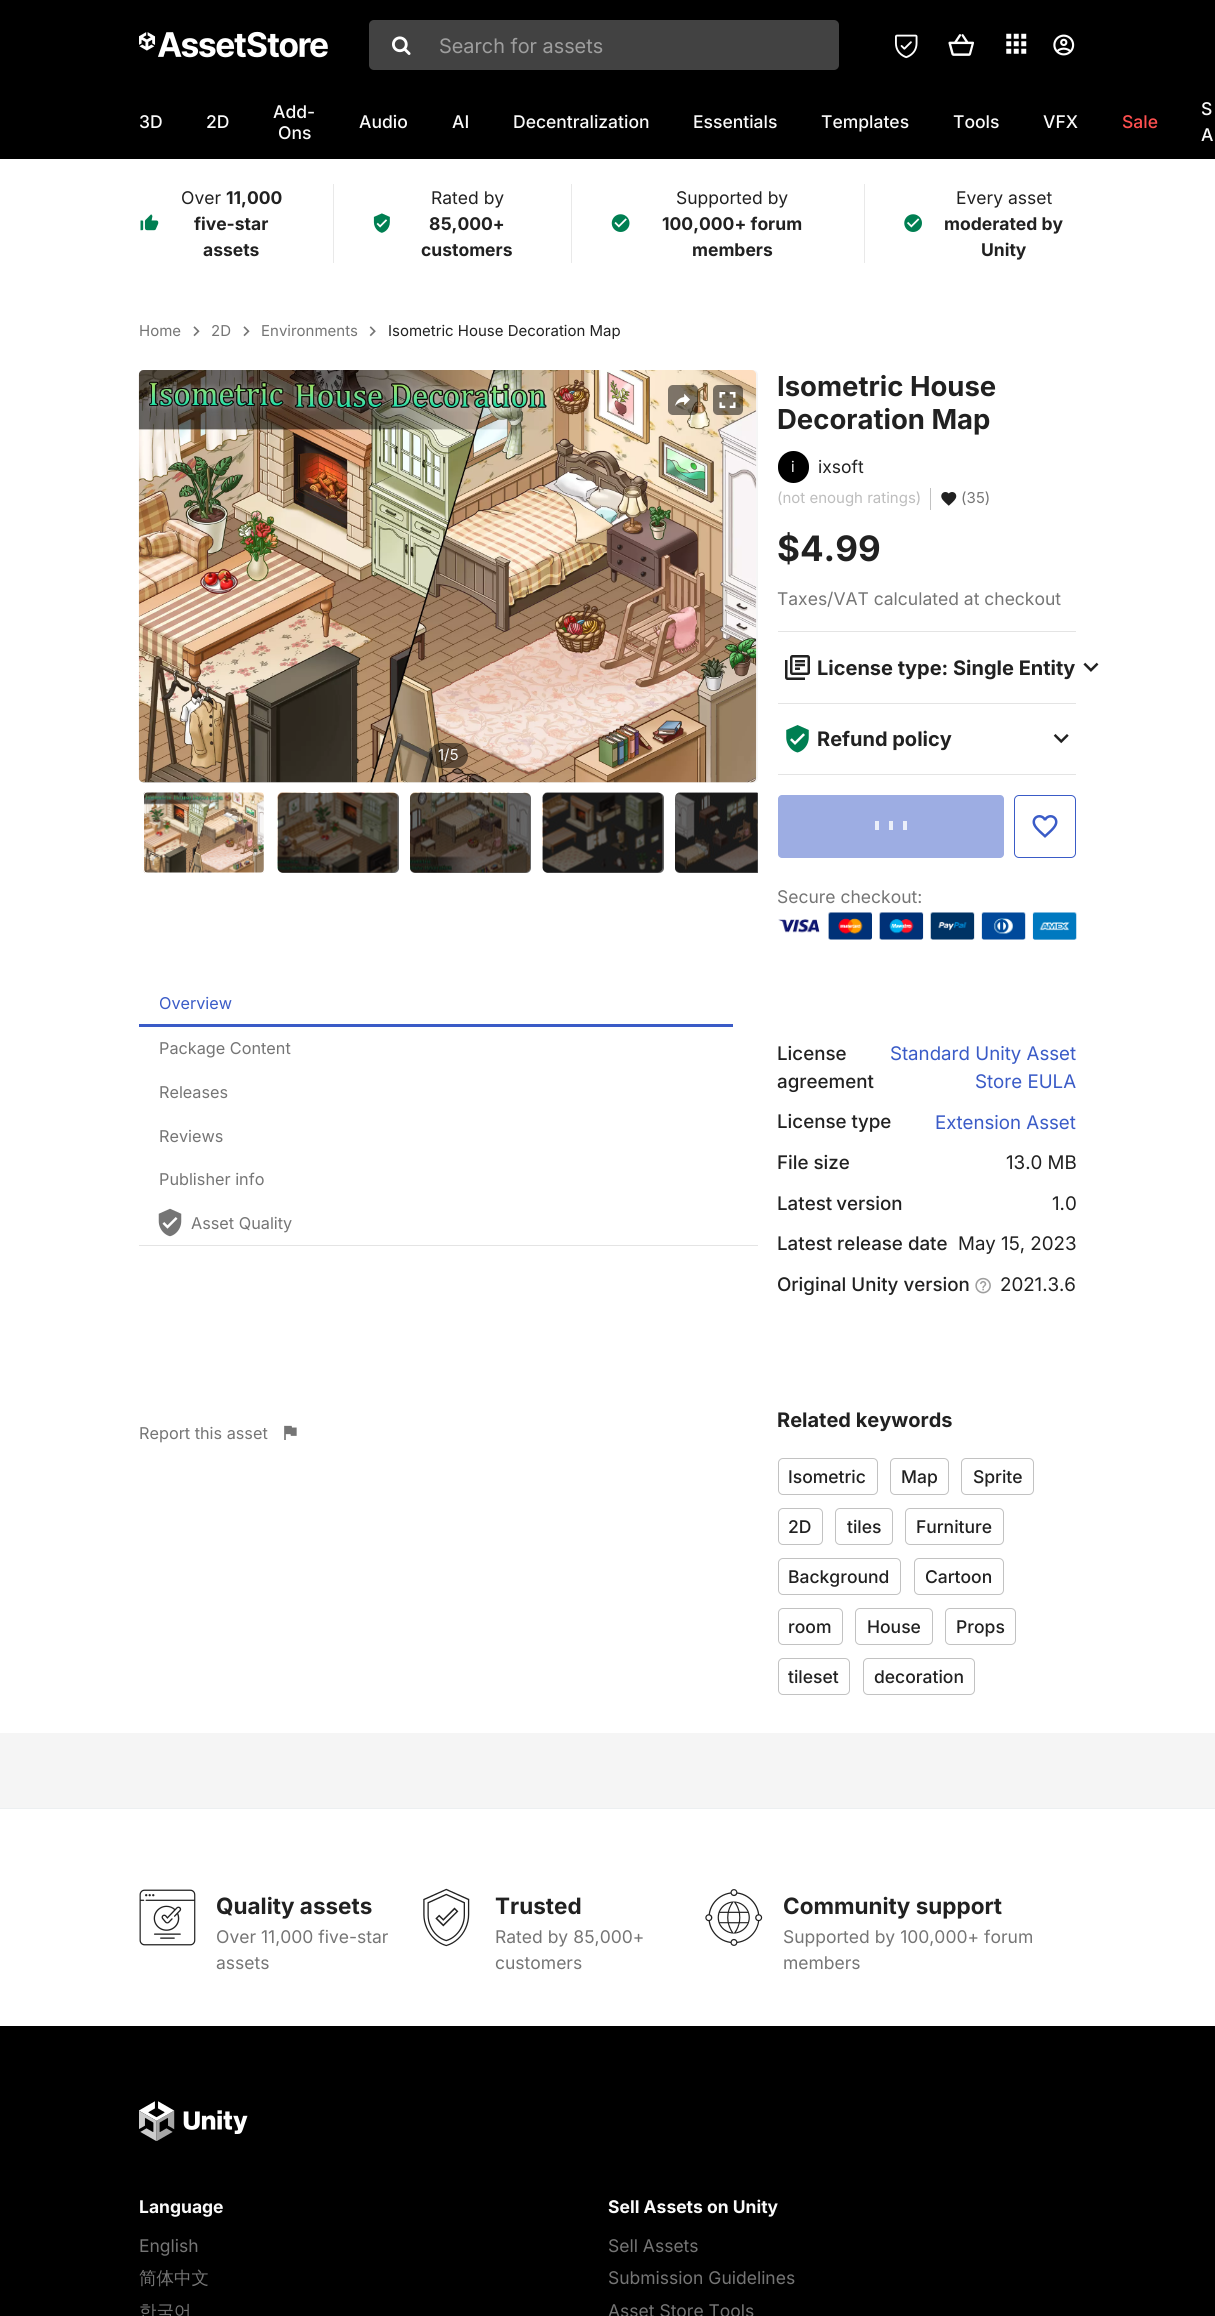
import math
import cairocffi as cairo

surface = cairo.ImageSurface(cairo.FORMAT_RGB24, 1215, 2316)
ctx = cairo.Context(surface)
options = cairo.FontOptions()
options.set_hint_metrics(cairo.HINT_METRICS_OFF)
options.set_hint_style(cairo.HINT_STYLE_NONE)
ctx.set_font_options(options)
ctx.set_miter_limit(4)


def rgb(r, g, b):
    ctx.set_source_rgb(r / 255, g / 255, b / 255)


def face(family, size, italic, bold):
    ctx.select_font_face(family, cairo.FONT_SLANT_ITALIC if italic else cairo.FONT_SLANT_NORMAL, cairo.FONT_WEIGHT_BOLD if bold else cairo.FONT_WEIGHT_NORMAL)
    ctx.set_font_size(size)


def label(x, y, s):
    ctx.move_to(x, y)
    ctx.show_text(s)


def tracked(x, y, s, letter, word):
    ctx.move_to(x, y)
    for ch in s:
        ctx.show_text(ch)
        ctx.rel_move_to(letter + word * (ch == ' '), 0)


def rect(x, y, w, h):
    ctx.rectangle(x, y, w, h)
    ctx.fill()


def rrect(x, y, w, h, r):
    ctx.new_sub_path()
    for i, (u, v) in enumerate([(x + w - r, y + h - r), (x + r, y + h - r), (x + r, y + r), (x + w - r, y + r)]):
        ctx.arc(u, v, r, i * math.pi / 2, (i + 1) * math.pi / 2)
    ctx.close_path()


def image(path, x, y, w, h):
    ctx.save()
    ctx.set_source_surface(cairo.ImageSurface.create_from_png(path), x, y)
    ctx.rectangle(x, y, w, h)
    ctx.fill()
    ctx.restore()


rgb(255, 255, 255)
ctx.paint()
rgb(0, 0, 0)
rect(0, 0, 1215, 159)
image('image0.png', 139, 31, 189, 27)
rgb(66, 66, 66)
rrect(369, 20, 470, 50, 5)
ctx.fill()
image('image1.png', 392, 36, 19, 19)
face('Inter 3', 20, 0, 0)
rgb(158, 158, 158)
label(439, 53, 'Search for assets')
image('image2.png', 895, 34, 23, 25)
image('image3.png', 948, 34, 26, 22)
image('image4.png', 1006, 33, 21, 21)
image('image5.png', 1053, 34, 22, 22)
face('Inter Medium', 17.5, 0, 0)
rgb(250, 250, 250)
label(139, 128, '3D')
label(206, 128, '2D')
label(273, 118, 'Add-')
label(278, 139, 'Ons')
label(359, 128, 'Audio')
label(452, 128, 'AI')
label(513, 128, 'Decentralization')
label(693, 128, 'Essentials')
label(821, 128, 'Templates')
label(953, 128, 'Tools')
label(1043, 128, 'VFX')
rgb(255, 80, 80)
label(1122, 128, 'Sale')
rgb(250, 250, 250)
label(1201, 115, 'S')
label(1201, 141, 'A')
image('image6.png', 140, 214, 19, 17)
face('Inter', 17.5, 0, 0)
rgb(33, 33, 33)
label(181, 204, 'Over')
face('Inter', 17.5, 0, 1)
label(226, 204, '11,000')
label(194, 230, 'five-star')
label(203, 256, 'assets')
rgb(233, 233, 233)
rect(571, 184, 1, 79)
rect(333, 184, 1, 79)
image('image7.png', 373, 213, 17, 20)
face('Inter', 17.5, 0, 0)
rgb(33, 33, 33)
label(431, 204, 'Rated by')
face('Inter', 17.5, 0, 1)
label(429, 230, '85,000+')
label(421, 256, 'customers')
rgb(233, 233, 233)
rect(864, 184, 1, 79)
image('image8.png', 611, 214, 19, 18)
face('Inter', 17.5, 0, 0)
rgb(33, 33, 33)
label(676, 204, 'Supported by')
face('Inter', 17.5, 0, 1)
label(662, 230, '100,000+ forum')
label(692, 256, 'members')
image('image9.png', 904, 214, 18, 18)
face('Inter', 17.5, 0, 0)
label(956, 204, 'Every asset')
face('Inter', 17.5, 0, 1)
label(944, 230, 'moderated by')
label(981, 256, 'Unity')
face('Inter', 15, 0, 0)
rgb(117, 117, 117)
label(139, 336, 'Home')
image('image10.png', 193, 326, 7, 11)
label(211, 336, '2D')
image('image10.png', 243, 326, 7, 11)
label(261, 336, 'Environments')
image('image11.png', 369, 326, 7, 11)
rgb(33, 33, 33)
label(388, 336, 'Isometric House Decoration Map')
rgb(245, 245, 245)
rrect(139, 370, 619, 413, 5)
ctx.fill()
image('image14.png', 138, 370, 619, 413)
ctx.set_source_rgba(0, 0, 0, 0.5)
rrect(668, 385, 30, 30, 5)
ctx.fill()
image('image12.png', 675, 393, 15, 13)
rrect(713, 385, 30, 30, 5)
ctx.fill()
image('image13.png', 719, 391, 17, 18)
rrect(429, 743, 39, 25, 12.5)
ctx.fill()
rgb(250, 250, 250)
label(438, 760, '1/5')
image('image15.png', 143, 792, 121, 81)
rrect(143.5, 791.5, 121, 82, 4.5)
rgb(255, 255, 255)
ctx.set_line_width(1)
ctx.stroke()
image('image16.png', 277, 792, 121, 81)
ctx.set_source_rgba(0, 0, 0, 0.6)
rrect(278, 793, 121, 80, 5)
ctx.fill()
image('image17.png', 410, 792, 120, 81)
rrect(410, 793, 121, 80, 5)
ctx.fill()
image('image18.png', 542, 792, 121, 81)
rrect(543, 793, 121, 80, 5)
ctx.fill()
image('image19.png', 675, 792, 83, 81)
ctx.new_path()
ctx.move_to(680, 793)
ctx.line_to(758, 793)
ctx.line_to(758, 873)
ctx.line_to(680, 873)
ctx.curve_to(677, 873, 675, 871, 675, 868)
ctx.line_to(675, 798)
ctx.curve_to(675, 795, 677, 793, 680, 793)
ctx.close_path()
ctx.fill()
rgb(228, 228, 228)
rect(139, 1245, 619, 1)
rgb(58, 91, 199)
rect(139, 1024, 594, 3)
face('Inter', 16.25, 0, 0)
label(159, 1009, 'Overview')
rgb(117, 117, 117)
label(159, 1054, 'Package Content')
label(159, 1098, 'Releases')
label(159, 1142, 'Reviews')
label(159, 1185, 'Publisher info')
image('image20.png', 158, 1208, 24, 29)
label(191, 1229, 'Asset Quality')
label(139, 1439, 'Report this asset')
image('image21.png', 284, 1425, 13, 15)
face('Inter', 27.5, 0, 1)
rgb(33, 33, 33)
label(777, 396, 'Isometric House')
label(777, 429, 'Decoration Map')
rgb(0, 0, 0)
rrect(778, 451, 31, 32, 15.5)
ctx.fill()
face('Inter', 15, 0, 0)
rgb(250, 250, 250)
label(791, 472, 'i')
face('Inter', 17.5, 0, 0)
rgb(33, 33, 33)
label(818, 473, 'ixsoft')
face('Inter', 15, 0, 0)
rgb(189, 189, 189)
label(777, 503, '(not enough ratings)')
rgb(194, 194, 194)
rect(930, 488, 1, 22)
image('image22.png', 941, 492, 16, 14)
rgb(117, 117, 117)
label(961, 503, '(35)')
face('Inter', 35, 0, 1)
rgb(33, 33, 33)
label(777, 561, '$4.99')
face('Inter', 17.5, 0, 0)
rgb(117, 117, 117)
label(777, 605, 'Taxes/VAT calculated at checkout')
rgb(228, 228, 228)
rect(778, 631, 298, 1)
image('image23.png', 785, 655, 25, 25)
face('Inter', 20, 0, 1)
rgb(33, 33, 33)
label(817, 675, 'License type: Single Entity')
image('image24.png', 1083, 662, 16, 10)
rgb(228, 228, 228)
rect(778, 703, 298, 1)
rect(778, 774, 298, 1)
image('image25.png', 786, 725, 23, 28)
rgb(33, 33, 33)
label(817, 746, 'Refund policy')
image('image26.png', 1053, 734, 16, 10)
rgb(157, 173, 227)
rrect(778, 795, 226, 63, 4)
ctx.fill()
rgb(235, 239, 249)
rect(875, 821, 4, 9)
rect(889, 821, 4, 9)
rect(903, 821, 4, 9)
rrect(1014.5, 795.5, 61, 62, 4.5)
rgb(58, 91, 199)
ctx.stroke()
image('image27.png', 1032, 815, 26, 23)
face('Inter', 17.5, 0, 0)
rgb(117, 117, 117)
label(777, 903, 'Secure checkout:')
image('image28.png', 778, 912, 299, 28)
face('Inter Medium', 18.75, 0, 0)
rgb(33, 33, 33)
label(777, 1060, 'License')
label(777, 1088, 'agreement')
face('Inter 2', 18.75, 0, 0)
rgb(58, 91, 199)
label(890, 1060, 'Standard Unity Asset')
label(975, 1088, 'Store EULA')
face('Inter Medium', 18.75, 0, 0)
rgb(33, 33, 33)
label(777, 1128, 'License type')
face('Inter 2', 18.75, 0, 0)
rgb(58, 91, 199)
label(935, 1129, 'Extension Asset')
face('Inter Medium', 18.75, 0, 0)
rgb(33, 33, 33)
label(777, 1169, 'File size')
face('Inter 2', 18.75, 0, 0)
label(1006, 1169, '13.0 MB')
face('Inter Medium', 18.75, 0, 0)
tracked(777, 1210, 'Latest version', 0, -1)
face('Inter 2', 18.75, 0, 0)
label(1052, 1210, '1.0')
face('Inter Medium', 18.75, 0, 0)
label(777, 1250, 'Latest release date')
face('Inter 2', 18.75, 0, 0)
label(958, 1250, 'May 15, 2023')
face('Inter Medium', 18.75, 0, 0)
label(777, 1291, 'Original Unity version')
image('image29.png', 975, 1277, 16, 17)
face('Inter 2', 18.75, 0, 0)
label(1000, 1291, '2021.3.6')
face('Inter', 20, 0, 1)
label(777, 1427, 'Related keywords')
rrect(778.5, 1458.5, 99, 36, 4.5)
rgb(194, 194, 194)
ctx.stroke()
face('Inter Medium', 17.5, 0, 0)
rgb(33, 33, 33)
label(788, 1483, 'Isometric')
rrect(890.5, 1458.5, 58, 36, 4.5)
rgb(194, 194, 194)
ctx.stroke()
rgb(33, 33, 33)
label(901, 1483, 'Map')
rrect(961.5, 1458.5, 72, 36, 4.5)
rgb(194, 194, 194)
ctx.stroke()
rgb(33, 33, 33)
label(973, 1483, 'Sprite')
rrect(778.5, 1508.5, 44, 36, 4.5)
rgb(194, 194, 194)
ctx.stroke()
rgb(33, 33, 33)
label(788, 1533, '2D')
rrect(835.5, 1508.5, 57, 36, 4.5)
rgb(194, 194, 194)
ctx.stroke()
rgb(33, 33, 33)
label(847, 1533, 'tiles')
rrect(905.5, 1508.5, 98, 36, 4.5)
rgb(194, 194, 194)
ctx.stroke()
rgb(33, 33, 33)
label(916, 1533, 'Furniture')
rrect(778.5, 1558.5, 122, 36, 4.5)
rgb(194, 194, 194)
ctx.stroke()
rgb(33, 33, 33)
label(788, 1583, 'Background')
rrect(914.5, 1558.5, 89, 36, 4.5)
rgb(194, 194, 194)
ctx.stroke()
rgb(33, 33, 33)
label(925, 1583, 'Cartoon')
rrect(778.5, 1608.5, 64, 36, 4.5)
rgb(194, 194, 194)
ctx.stroke()
rgb(33, 33, 33)
label(788, 1633, 'room')
rrect(855.5, 1608.5, 77, 36, 4.5)
rgb(194, 194, 194)
ctx.stroke()
rgb(33, 33, 33)
label(867, 1633, 'House')
rrect(945.5, 1608.5, 70, 36, 4.5)
rgb(194, 194, 194)
ctx.stroke()
rgb(33, 33, 33)
label(956, 1633, 'Props')
rrect(778.5, 1658.5, 71, 36, 4.5)
rgb(194, 194, 194)
ctx.stroke()
rgb(33, 33, 33)
label(788, 1683, 'tileset')
rrect(863.5, 1658.5, 111, 36, 4.5)
rgb(194, 194, 194)
ctx.stroke()
rgb(33, 33, 33)
label(874, 1683, 'decoration')
rgb(245, 245, 245)
rect(0, 1733, 1215, 75)
rgb(236, 239, 241)
rect(0, 1808, 1215, 1)
image('image30.png', 139, 1889, 57, 57)
face('Inter', 22.5, 0, 1)
rgb(33, 33, 33)
label(216, 1914, 'Quality assets')
face('Inter', 17.5, 0, 0)
rgb(117, 117, 117)
label(216, 1943, 'Over 11,000 five-star')
label(216, 1969, 'assets')
image('image31.png', 423, 1888, 47, 59)
face('Inter', 22.5, 0, 1)
rgb(33, 33, 33)
label(495, 1914, 'Trusted')
face('Inter', 17.5, 0, 0)
rgb(117, 117, 117)
label(495, 1943, 'Rated by 85,000+')
label(495, 1969, 'customers')
image('image32.png', 705, 1889, 58, 57)
face('Inter', 22.5, 0, 1)
rgb(33, 33, 33)
label(783, 1914, 'Community support')
face('Inter', 17.5, 0, 0)
rgb(117, 117, 117)
label(783, 1943, 'Supported by 100,000+ forum')
label(783, 1969, 'members')
rgb(0, 0, 0)
rect(0, 2026, 1215, 290)
image('image33.png', 139, 2101, 109, 40)
face('Inter', 17.5, 0, 1)
rgb(250, 250, 250)
label(139, 2213, 'Language')
face('Inter', 17.5, 0, 0)
rgb(117, 117, 117)
label(139, 2252, 'English')
face('WenQuanYi Zen Hei Medium', 17.5, 0, 0)
label(139, 2284, '简体中文')
label(139, 2317, '한국어')
face('Inter', 17.5, 0, 1)
rgb(250, 250, 250)
label(608, 2213, 'Sell Assets on Unity')
face('Inter', 17.5, 0, 0)
rgb(117, 117, 117)
label(608, 2252, 'Sell Assets')
label(608, 2284, 'Submission Guidelines')
label(608, 2317, 'Asset Store Tools')
surface.write_to_png('render.png')
